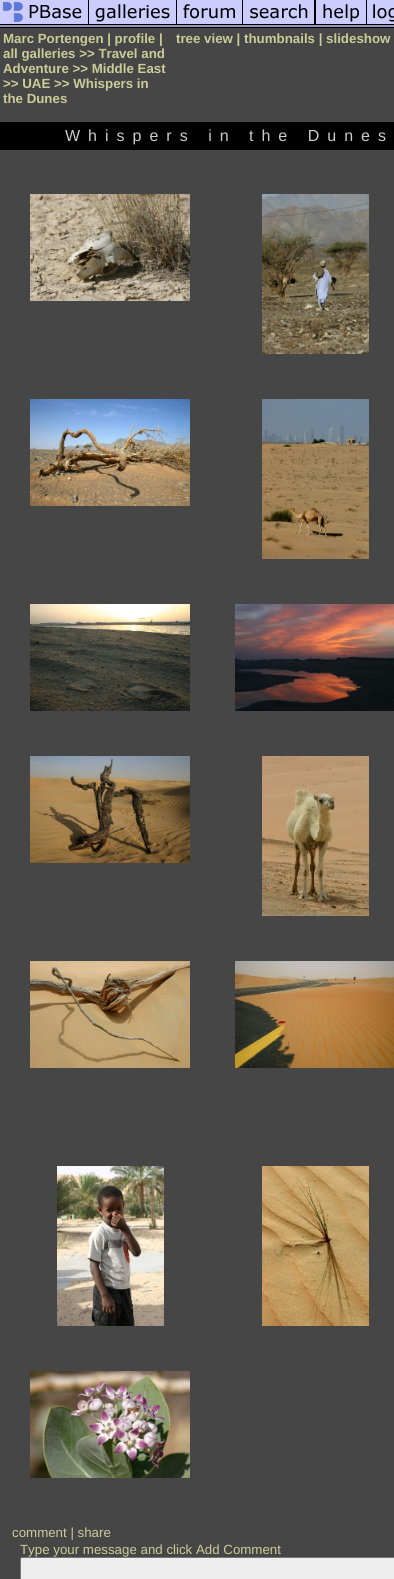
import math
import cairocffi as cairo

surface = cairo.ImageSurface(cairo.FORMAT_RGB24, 394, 1579)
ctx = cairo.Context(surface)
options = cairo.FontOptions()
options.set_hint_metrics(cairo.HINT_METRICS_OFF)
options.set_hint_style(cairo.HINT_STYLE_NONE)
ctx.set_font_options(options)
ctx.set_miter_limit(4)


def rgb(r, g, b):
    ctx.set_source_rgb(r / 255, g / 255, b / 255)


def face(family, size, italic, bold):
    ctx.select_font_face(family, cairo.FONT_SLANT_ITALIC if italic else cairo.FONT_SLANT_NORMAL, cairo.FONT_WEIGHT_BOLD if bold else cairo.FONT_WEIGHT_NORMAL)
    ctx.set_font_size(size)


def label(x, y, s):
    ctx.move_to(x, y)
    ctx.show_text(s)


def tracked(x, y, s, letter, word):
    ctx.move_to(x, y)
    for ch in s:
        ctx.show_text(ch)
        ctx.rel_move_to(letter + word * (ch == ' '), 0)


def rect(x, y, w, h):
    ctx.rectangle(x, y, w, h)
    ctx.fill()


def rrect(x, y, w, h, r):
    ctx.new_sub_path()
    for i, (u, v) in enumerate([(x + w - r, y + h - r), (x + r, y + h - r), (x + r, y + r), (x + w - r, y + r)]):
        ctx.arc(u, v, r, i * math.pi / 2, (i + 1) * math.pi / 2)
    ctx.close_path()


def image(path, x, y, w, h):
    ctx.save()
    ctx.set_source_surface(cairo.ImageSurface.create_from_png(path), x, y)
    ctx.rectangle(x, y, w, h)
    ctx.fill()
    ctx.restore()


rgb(70, 70, 70)
ctx.paint()
image('image0.png', 0, 0, 89, 28)
image('image1.png', 89, 0, 88, 28)
image('image2.png', 177, 0, 66, 28)
image('image3.png', 243, 0, 72, 28)
image('image4.png', 315, 0, 52, 28)
image('image5.png', 367, 0, 27, 28)
face('Liberation Sans', 13.3, 0, 1)
rgb(204, 204, 153)
label(3, 43, 'Marc Portengen | profile |')
label(3, 58, 'all galleries >> Travel and')
label(3, 73, 'Adventure >> Middle East')
label(3, 88, '>> UAE >> Whispers in')
label(3, 103, 'the Dunes')
label(176, 43, 'tree view | thumbnails | slideshow')
rgb(0, 0, 0)
rect(0, 122, 394, 28)
face('Liberation Sans', 16, 0, 0)
rgb(204, 204, 204)
tracked(65, 141, 'Whispers in the Dunes', 8, 0)
image('image6.png', 30, 194, 160, 107)
image('image7.png', 262, 194, 107, 160)
image('image8.png', 30, 399, 160, 107)
image('image9.png', 262, 399, 107, 160)
image('image10.png', 30, 604, 160, 107)
image('image11.png', 235, 604, 159, 107)
image('image12.png', 30, 756, 160, 107)
image('image13.png', 262, 756, 107, 160)
image('image14.png', 30, 961, 160, 107)
image('image15.png', 235, 961, 159, 107)
image('image16.png', 57, 1166, 107, 160)
image('image17.png', 262, 1166, 107, 160)
image('image18.png', 30, 1371, 160, 107)
face('Liberation Sans', 13.3, 0, 0)
rgb(204, 204, 153)
label(12, 1537, 'comment | share')
label(20, 1554, 'Type your message and click Add Comment')
rgb(51, 51, 51)
rect(20, 1557, 2, 2)
rgb(238, 238, 238)
rrect(20.5, 1557.5, 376, 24, 1.5)
ctx.fill_preserve()
rgb(118, 118, 118)
ctx.set_line_width(1)
ctx.stroke()
surface.write_to_png('render.png')
